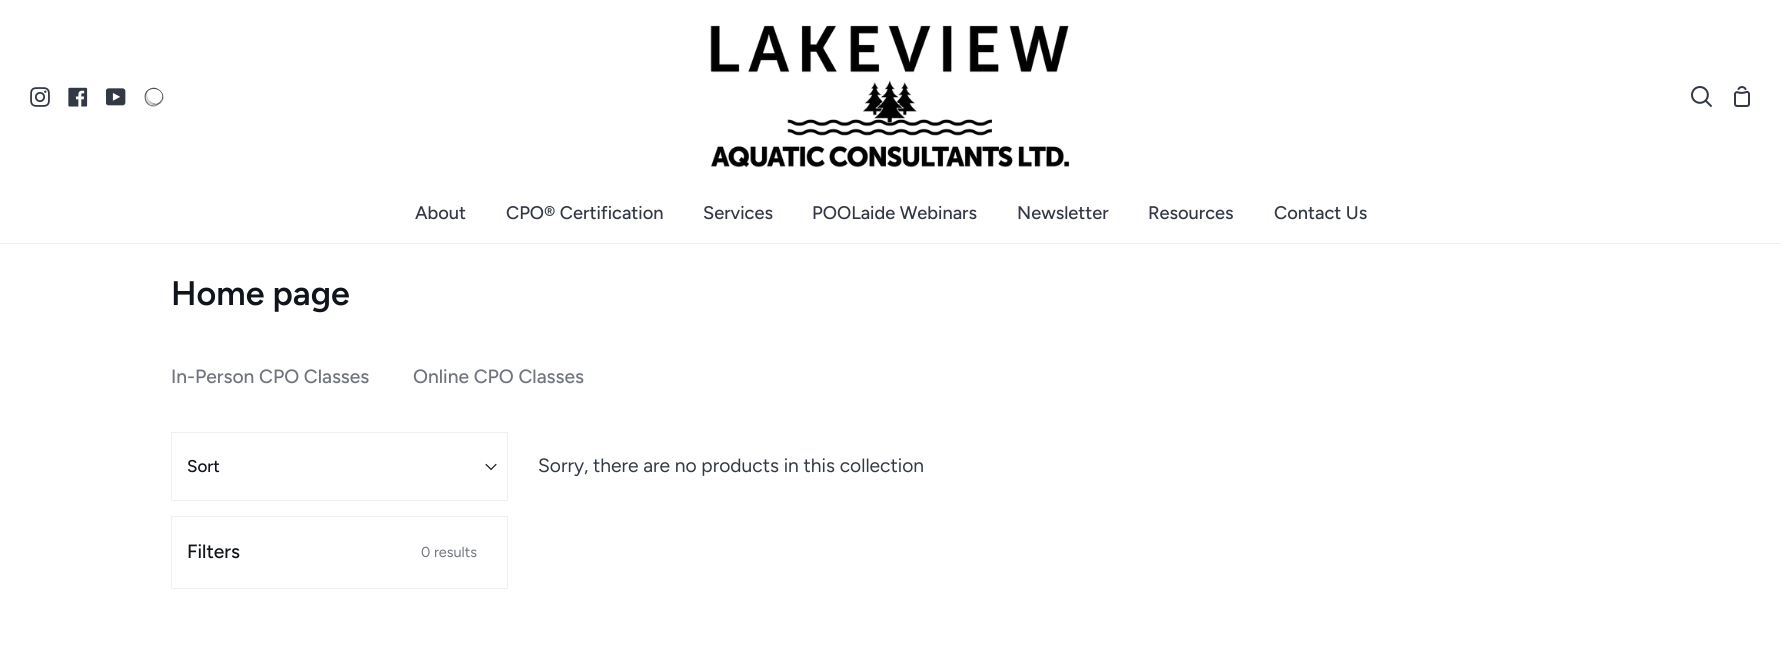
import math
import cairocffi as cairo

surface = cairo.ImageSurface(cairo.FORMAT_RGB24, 1781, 660)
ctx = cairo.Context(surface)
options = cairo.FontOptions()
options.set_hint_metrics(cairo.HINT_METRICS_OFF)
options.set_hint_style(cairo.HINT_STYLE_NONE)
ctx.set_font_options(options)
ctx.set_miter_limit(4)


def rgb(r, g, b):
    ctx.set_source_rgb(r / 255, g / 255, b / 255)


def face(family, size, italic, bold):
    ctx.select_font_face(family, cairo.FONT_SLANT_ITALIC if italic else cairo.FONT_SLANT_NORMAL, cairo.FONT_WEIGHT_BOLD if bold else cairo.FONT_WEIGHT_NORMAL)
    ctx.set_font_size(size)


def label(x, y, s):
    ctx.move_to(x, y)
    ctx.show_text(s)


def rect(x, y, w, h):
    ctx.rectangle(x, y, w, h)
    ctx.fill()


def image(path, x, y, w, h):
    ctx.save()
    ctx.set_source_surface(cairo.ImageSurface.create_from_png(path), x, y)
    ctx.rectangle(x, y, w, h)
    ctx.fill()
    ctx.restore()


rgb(255, 255, 255)
ctx.paint()
rgb(242, 242, 242)
rect(0, 243, 1781, 1)
image('image0.png', 30, 87, 20, 20)
image('image1.png', 68, 87, 20, 20)
image('image2.png', 106, 88, 20, 18)
image('image3.png', 144, 87, 20, 20)
image('image4.png', 710, 25, 360, 143)
image('image5.png', 1691, 86, 21, 21)
image('image6.png', 1734, 86, 16, 21)
face('Figtree Medium', 18.25, 0, 0)
rgb(50, 57, 69)
label(415, 219, 'About')
label(506, 219, 'CPO® Certification')
label(703, 219, 'Services')
label(812, 219, 'POOLaide Webinars')
label(1017, 219, 'Newsletter')
label(1148, 219, 'Resources')
label(1274, 219, 'Contact Us')
face('Figtree SemiBold', 34, 0, 0)
rgb(16, 20, 27)
label(171, 305, 'Home page')
face('Figtree Medium', 19.2, 0, 0)
rgb(112, 116, 125)
label(171, 383, 'In-Person CPO Classes')
label(413, 383, 'Online CPO Classes')
ctx.rectangle(171.5, 432.5, 336, 68)
rgb(238, 239, 241)
ctx.set_line_width(1)
ctx.stroke()
face('Figtree Medium', 17, 0, 0)
rgb(16, 20, 27)
label(187, 472, 'Sort')
image('image7.png', 485, 463, 12, 8)
ctx.rectangle(171.5, 516.5, 336, 72)
rgb(238, 239, 241)
ctx.stroke()
face('Figtree Medium', 19.2, 0, 0)
rgb(16, 20, 27)
label(187, 558, 'Filters')
face('Figtree', 14.5, 0, 0)
rgb(112, 116, 125)
label(421, 557, '0 results')
face('Figtree', 19.2, 0, 0)
rgb(50, 57, 69)
label(538, 472, 'Sorry, there are no products in this collection')
surface.write_to_png('render.png')
